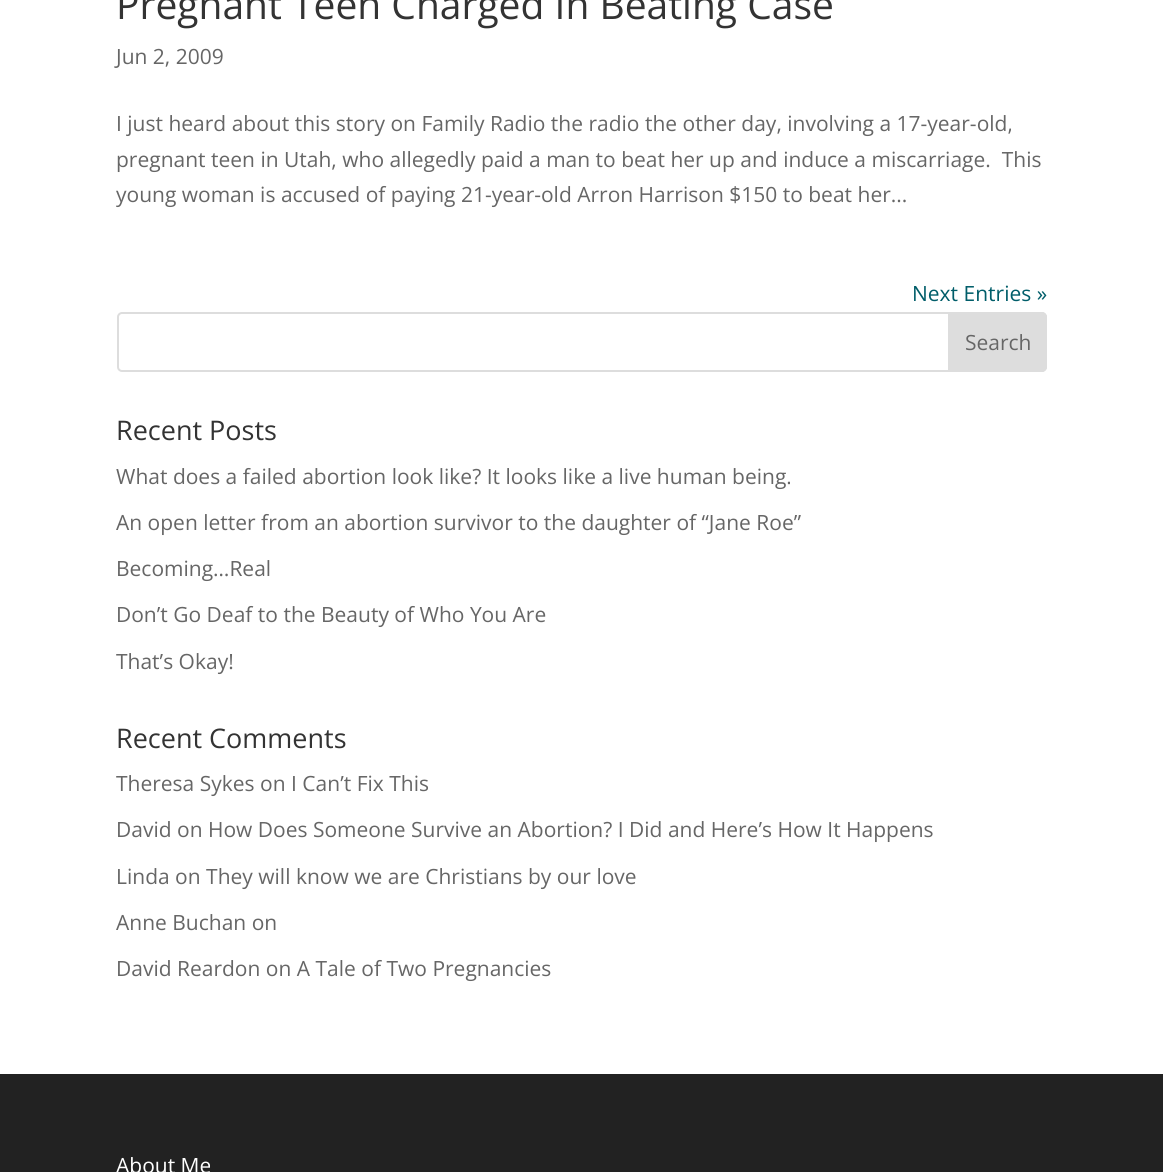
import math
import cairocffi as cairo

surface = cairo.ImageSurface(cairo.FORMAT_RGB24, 1163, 1172)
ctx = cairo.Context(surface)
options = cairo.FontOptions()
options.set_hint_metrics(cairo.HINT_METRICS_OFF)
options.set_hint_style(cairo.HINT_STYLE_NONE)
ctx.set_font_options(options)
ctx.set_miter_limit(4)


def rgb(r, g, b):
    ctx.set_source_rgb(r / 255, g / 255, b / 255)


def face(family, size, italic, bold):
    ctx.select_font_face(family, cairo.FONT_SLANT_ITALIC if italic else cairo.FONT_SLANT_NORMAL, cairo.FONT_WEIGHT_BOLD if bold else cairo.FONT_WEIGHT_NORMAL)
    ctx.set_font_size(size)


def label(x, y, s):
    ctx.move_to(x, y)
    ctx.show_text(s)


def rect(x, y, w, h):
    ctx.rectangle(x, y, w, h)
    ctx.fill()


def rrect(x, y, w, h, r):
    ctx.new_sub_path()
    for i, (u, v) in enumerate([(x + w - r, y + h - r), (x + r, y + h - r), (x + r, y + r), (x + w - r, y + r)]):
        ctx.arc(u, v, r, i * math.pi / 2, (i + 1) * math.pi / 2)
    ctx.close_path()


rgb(255, 255, 255)
ctx.paint()
face('Open Sans', 39, 0, 0)
rgb(51, 51, 51)
label(116, 19, 'Pregnant Teen Charged In Beating Case')
face('Open Sans', 21, 0, 0)
rgb(102, 102, 102)
label(116, 64, 'Jun 2, 2009')
label(116, 131, 'I just heard about this story on Family Radio the radio the other day, involving a 17-year-old,')
label(116, 167, 'pregnant teen in Utah, who allegedly paid a man to beat her up and induce a miscarriage.  This')
label(116, 202, 'young woman is accused of paying 21-year-old Arron Harrison $150 to beat her...')
rgb(0, 93, 105)
label(912, 301, 'Next Entries »')
rrect(118, 313, 928, 58, 4)
rgb(221, 221, 221)
ctx.stroke()
ctx.new_path()
ctx.move_to(949, 313)
ctx.line_to(1042, 313)
ctx.curve_to(1044, 313, 1046, 315, 1046, 317)
ctx.line_to(1046, 367)
ctx.curve_to(1046, 369, 1044, 371, 1042, 371)
ctx.line_to(949, 371)
ctx.close_path()
ctx.fill_preserve()
ctx.stroke()
rgb(102, 102, 102)
label(965, 350, 'Search')
face('Open Sans', 27, 0, 0)
rgb(51, 51, 51)
label(116, 440, 'Recent Posts')
face('Open Sans', 21, 0, 0)
rgb(102, 102, 102)
label(116, 484, 'What does a failed abortion look like? It looks like a live human being.')
label(116, 530, 'An open letter from an abortion survivor to the daughter of “Jane Roe”')
label(116, 576, 'Becoming…Real')
label(116, 622, 'Don’t Go Deaf to the Beauty of Who You Are')
label(116, 669, 'That’s Okay!')
face('Open Sans', 27, 0, 0)
rgb(51, 51, 51)
label(116, 748, 'Recent Comments')
face('Open Sans', 21, 0, 0)
rgb(102, 102, 102)
label(116, 791, 'Theresa Sykes on I Can’t Fix This')
label(116, 837, 'David on How Does Someone Survive an Abortion? I Did and Here’s How It Happens')
label(116, 884, 'Linda on They will know we are Christians by our love')
label(116, 930, 'Anne Buchan on')
label(116, 976, 'David Reardon on A Tale of Two Pregnancies')
rgb(34, 34, 34)
rect(0, 1074, 1163, 98)
rgb(255, 255, 255)
label(116, 1173, 'About Me')
surface.write_to_png('render.png')
